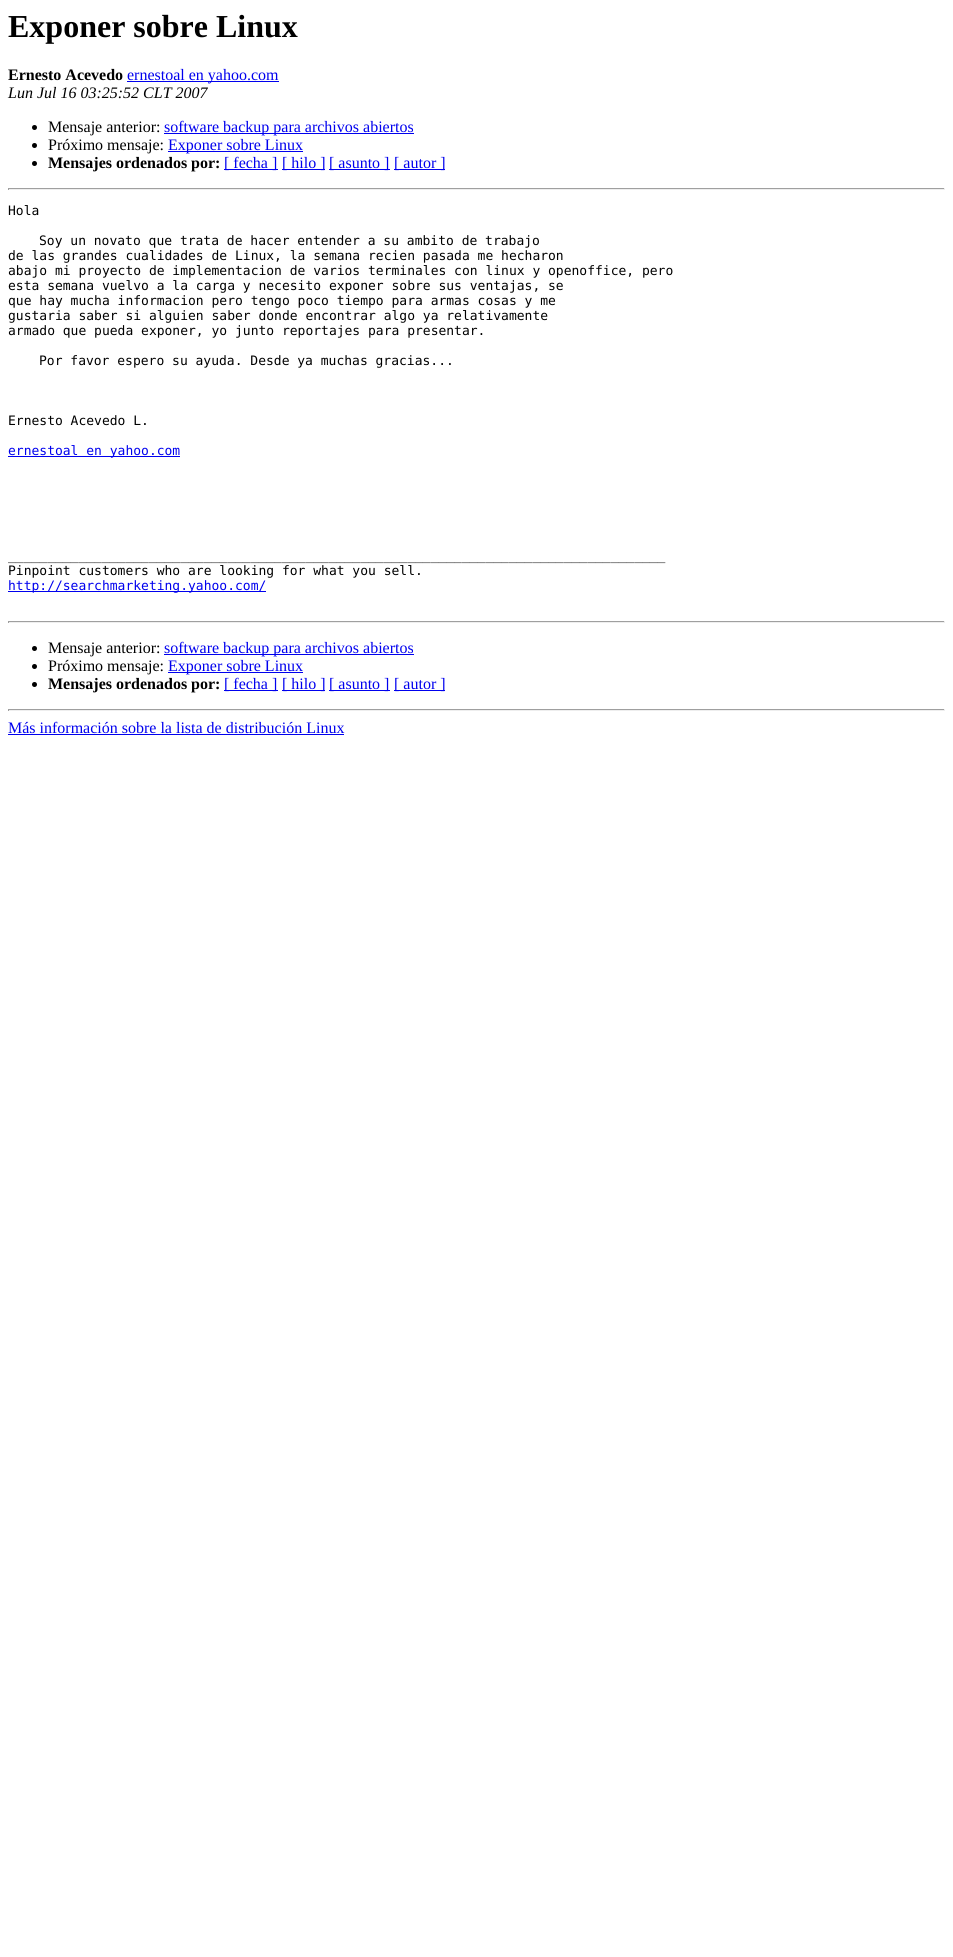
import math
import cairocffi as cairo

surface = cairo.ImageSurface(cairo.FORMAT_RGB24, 953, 1957)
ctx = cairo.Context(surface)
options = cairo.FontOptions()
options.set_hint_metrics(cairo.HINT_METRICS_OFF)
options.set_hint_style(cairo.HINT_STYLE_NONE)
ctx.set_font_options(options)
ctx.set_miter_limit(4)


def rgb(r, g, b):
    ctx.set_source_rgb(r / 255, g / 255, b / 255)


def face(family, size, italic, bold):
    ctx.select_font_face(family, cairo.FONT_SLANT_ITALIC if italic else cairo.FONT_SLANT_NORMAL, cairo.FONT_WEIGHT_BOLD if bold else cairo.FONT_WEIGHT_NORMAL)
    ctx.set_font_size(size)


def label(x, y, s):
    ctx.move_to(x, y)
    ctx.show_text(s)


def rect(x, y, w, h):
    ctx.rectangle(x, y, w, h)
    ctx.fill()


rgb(255, 255, 255)
ctx.paint()
face('Liberation Serif', 32, 0, 1)
rgb(0, 0, 0)
label(8, 37, 'Exponer sobre Linux')
face('Liberation Serif', 16, 0, 1)
label(8, 80, 'Ernesto Acevedo')
rgb(0, 0, 238)
rect(127, 81, 152, 1)
face('Liberation Serif', 16, 0, 0)
label(127, 80, 'ernestoal en yahoo.com')
face('Liberation Serif', 16, 1, 0)
rgb(0, 0, 0)
label(8, 98, 'Lun Jul 16 03:25:52 CLT 2007')
ctx.new_path()
ctx.arc(34.5, 127.5, 2.5, 0, 2 * math.pi)
ctx.fill()
face('Liberation Serif', 16, 0, 0)
label(48, 132, 'Mensaje anterior:')
rgb(0, 0, 238)
rect(164, 133, 250, 1)
label(164, 132, 'software backup para archivos abiertos')
rgb(0, 0, 0)
ctx.new_path()
ctx.arc(34.5, 145.5, 2.5, 0, 2 * math.pi)
ctx.fill()
label(48, 150, 'Próximo mensaje:')
rgb(0, 0, 238)
rect(168, 151, 135, 1)
label(168, 150, 'Exponer sobre Linux')
rgb(0, 0, 0)
ctx.new_path()
ctx.arc(34.5, 163.5, 2.5, 0, 2 * math.pi)
ctx.fill()
face('Liberation Serif', 16, 0, 1)
label(48, 168, 'Mensajes ordenados por:')
rgb(0, 0, 238)
rect(224, 169, 54, 1)
face('Liberation Serif', 16, 0, 0)
label(224, 168, '[ fecha ]')
rect(282, 169, 43, 1)
label(282, 168, '[ hilo ]')
rect(329, 169, 61, 1)
label(329, 168, '[ asunto ]')
rect(394, 169, 51, 1)
label(394, 168, '[ autor ]')
rgb(159, 159, 159)
rect(8, 188, 937, 1)
rgb(238, 238, 238)
rect(944, 188, 1, 2)
rect(8, 189, 937, 1)
rgb(159, 159, 159)
rect(8, 188, 1, 2)
face('DejaVu Sans Mono', 13, 0, 0)
rgb(0, 0, 0)
label(8, 215, 'Hola')
label(39, 245, 'Soy un novato que trata de hacer entender a su ambito de trabajo')
label(8, 260, 'de las grandes cualidades de Linux, la semana recien pasada me hecharon')
label(8, 275, 'abajo mi proyecto de implementacion de varios terminales con linux y openoffice, pero')
label(8, 290, 'esta semana vuelvo a la carga y necesito exponer sobre sus ventajas, se')
label(8, 305, 'que hay mucha informacion pero tengo poco tiempo para armas cosas y me')
label(8, 320, 'gustaria saber si alguien saber donde encontrar algo ya relativamente')
label(8, 335, 'armado que pueda exponer, yo junto reportajes para presentar.')
label(39, 365, 'Por favor espero su ayuda. Desde ya muchas gracias...')
label(8, 425, 'Ernesto Acevedo L.')
rgb(0, 0, 238)
rect(8, 456, 172, 1)
label(8, 455, 'ernestoal en yahoo.com')
rgb(0, 0, 0)
label(8, 560, '____________________________________________________________________________________')
label(8, 575, 'Pinpoint customers who are looking for what you sell.')
rgb(0, 0, 238)
rect(8, 591, 258, 1)
label(8, 590, 'http://searchmarketing.yahoo.com/')
rgb(159, 159, 159)
rect(8, 621, 937, 1)
rgb(238, 238, 238)
rect(944, 621, 1, 2)
rect(8, 622, 937, 1)
rgb(159, 159, 159)
rect(8, 621, 1, 2)
rgb(0, 0, 0)
ctx.new_path()
ctx.arc(34.5, 648.5, 2.5, 0, 2 * math.pi)
ctx.fill()
face('Liberation Serif', 16, 0, 0)
label(48, 653, 'Mensaje anterior:')
rgb(0, 0, 238)
rect(164, 654, 250, 1)
label(164, 653, 'software backup para archivos abiertos')
rgb(0, 0, 0)
ctx.new_path()
ctx.arc(34.5, 666.5, 2.5, 0, 2 * math.pi)
ctx.fill()
label(48, 671, 'Próximo mensaje:')
rgb(0, 0, 238)
rect(168, 672, 135, 1)
label(168, 671, 'Exponer sobre Linux')
rgb(0, 0, 0)
ctx.new_path()
ctx.arc(34.5, 684.5, 2.5, 0, 2 * math.pi)
ctx.fill()
face('Liberation Serif', 16, 0, 1)
label(48, 689, 'Mensajes ordenados por:')
rgb(0, 0, 238)
rect(224, 690, 54, 1)
face('Liberation Serif', 16, 0, 0)
label(224, 689, '[ fecha ]')
rect(282, 690, 43, 1)
label(282, 689, '[ hilo ]')
rect(329, 690, 61, 1)
label(329, 689, '[ asunto ]')
rect(394, 690, 51, 1)
label(394, 689, '[ autor ]')
rgb(159, 159, 159)
rect(8, 709, 937, 1)
rgb(238, 238, 238)
rect(944, 709, 1, 2)
rect(8, 710, 937, 1)
rgb(159, 159, 159)
rect(8, 709, 1, 2)
rgb(0, 0, 238)
label(8, 733, 'Más información sobre la lista de distribución Linux')
rect(8, 734, 336, 1)
surface.write_to_png('render.png')
